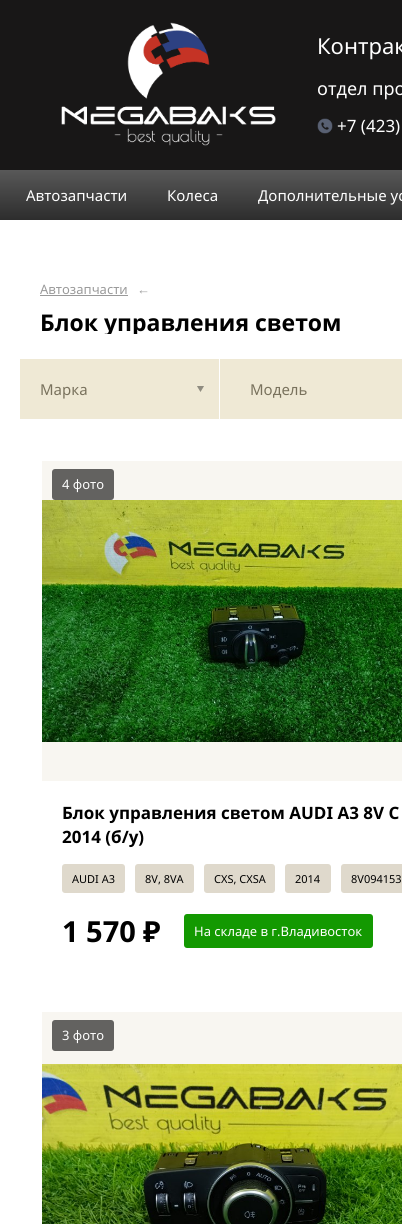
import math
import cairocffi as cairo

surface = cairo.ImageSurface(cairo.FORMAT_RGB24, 402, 1224)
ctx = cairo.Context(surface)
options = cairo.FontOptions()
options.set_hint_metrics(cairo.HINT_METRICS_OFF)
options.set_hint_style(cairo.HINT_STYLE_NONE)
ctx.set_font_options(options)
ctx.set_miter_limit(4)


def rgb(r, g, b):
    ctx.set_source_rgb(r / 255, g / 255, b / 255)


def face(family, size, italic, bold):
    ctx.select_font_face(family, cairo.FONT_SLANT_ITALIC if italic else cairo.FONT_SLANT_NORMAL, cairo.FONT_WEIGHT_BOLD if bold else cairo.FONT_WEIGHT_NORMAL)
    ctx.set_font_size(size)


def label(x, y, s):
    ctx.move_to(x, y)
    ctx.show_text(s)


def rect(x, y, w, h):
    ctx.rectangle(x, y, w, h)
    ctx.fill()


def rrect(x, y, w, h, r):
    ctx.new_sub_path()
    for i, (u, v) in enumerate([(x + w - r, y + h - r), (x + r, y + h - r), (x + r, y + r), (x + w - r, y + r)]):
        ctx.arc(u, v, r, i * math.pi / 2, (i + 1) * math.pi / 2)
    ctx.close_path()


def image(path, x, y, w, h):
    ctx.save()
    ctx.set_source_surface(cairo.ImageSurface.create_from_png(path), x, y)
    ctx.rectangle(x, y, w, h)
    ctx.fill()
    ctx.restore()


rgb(255, 255, 255)
ctx.paint()
rgb(24, 23, 23)
rect(0, 0, 402, 170)
image('image0.png', 61, 22, 215, 124)
face('Noto Sans', 22, 0, 0)
rgb(255, 255, 255)
label(317, 54, 'Контрак')
face('Noto Sans', 18, 0, 0)
label(317, 95, 'отдел про')
image('image1.png', 317, 118, 16, 16)
face('Noto Sans', 17, 0, 0)
label(337, 132, '+7 (423)')
gradient = cairo.LinearGradient(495, 170, 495, 220)
gradient.add_color_stop_rgba(0, 0.345, 0.345, 0.345, 1)
gradient.add_color_stop_rgba(1, 0.176, 0.176, 0.176, 1)
ctx.set_source(gradient)
rect(0, 170, 402, 50)
face('Noto Sans', 15, 0, 0)
rgb(255, 255, 255)
label(26, 201, 'Автозапчасти')
label(167, 201, 'Колеса')
label(258, 201, 'Дополнительные ус')
face('Noto Sans', 13, 0, 0)
rgb(153, 153, 153)
label(40, 294, 'Автозапчасти')
rect(40, 295, 88, 1)
label(137, 294, '←')
ctx.save()
ctx.rectangle(40, 296, 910, 38)
ctx.clip()
face('Noto Sans', 23, 0, 1)
rgb(0, 0, 0)
label(40, 331, 'Блок управления светом')
ctx.restore()
rgb(239, 233, 213)
rect(20, 359, 199, 60)
face('Noto Sans', 15, 0, 0)
rgb(121, 114, 93)
label(40, 395, 'Марка')
image('image2.png', 197, 386, 7, 6)
rgb(239, 233, 213)
rect(220, 359, 182, 60)
rgb(121, 114, 93)
label(250, 395, 'Модель')
rgb(248, 246, 241)
rect(42, 461, 360, 320)
rgb(99, 98, 96)
rrect(52, 469, 62, 31, 3)
ctx.fill()
face('Noto Sans', 13, 0, 0)
rgb(255, 255, 255)
label(62, 489, '4 фото')
image('image3.png', 42, 500, 360, 242)
face('Noto Sans', 17, 0, 1)
rgb(0, 0, 0)
label(62, 819, 'Блок управления светом AUDI A3 8V C')
label(62, 843, '2014 (б/у)')
rgb(223, 217, 204)
rrect(62, 864, 63, 29, 3)
ctx.fill()
face('Noto Sans', 11, 0, 0)
rgb(0, 0, 0)
label(72, 883, 'AUDI A3')
rgb(223, 217, 204)
rrect(135, 864, 59, 29, 3)
ctx.fill()
rgb(0, 0, 0)
label(145, 883, '8V, 8VA')
rgb(223, 217, 204)
rrect(204, 864, 71, 29, 3)
ctx.fill()
rgb(0, 0, 0)
label(214, 883, 'CXS, CXSA')
rgb(223, 217, 204)
rrect(285, 864, 46, 29, 3)
ctx.fill()
rgb(0, 0, 0)
label(295, 883, '2014')
rgb(223, 217, 204)
rrect(341, 864, 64, 29, 3)
ctx.fill()
rgb(0, 0, 0)
label(351, 883, '8V094153')
face('Noto Sans', 29, 0, 1)
label(62, 942, '1 570')
face('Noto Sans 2', 29, 0, 1)
label(143, 942, '₽')
rgb(19, 153, 1)
rrect(184, 914, 189, 34, 3)
ctx.fill()
face('Noto Sans', 13, 0, 0)
rgb(255, 255, 255)
label(194, 936, 'На складе в г.Владивосток')
rgb(248, 246, 241)
rect(42, 1012, 360, 52)
rgb(99, 98, 96)
rrect(52, 1020, 62, 31, 3)
ctx.fill()
rgb(255, 255, 255)
label(62, 1040, '3 фото')
image('image4.png', 42, 1064, 360, 160)
surface.write_to_png('render.png')
